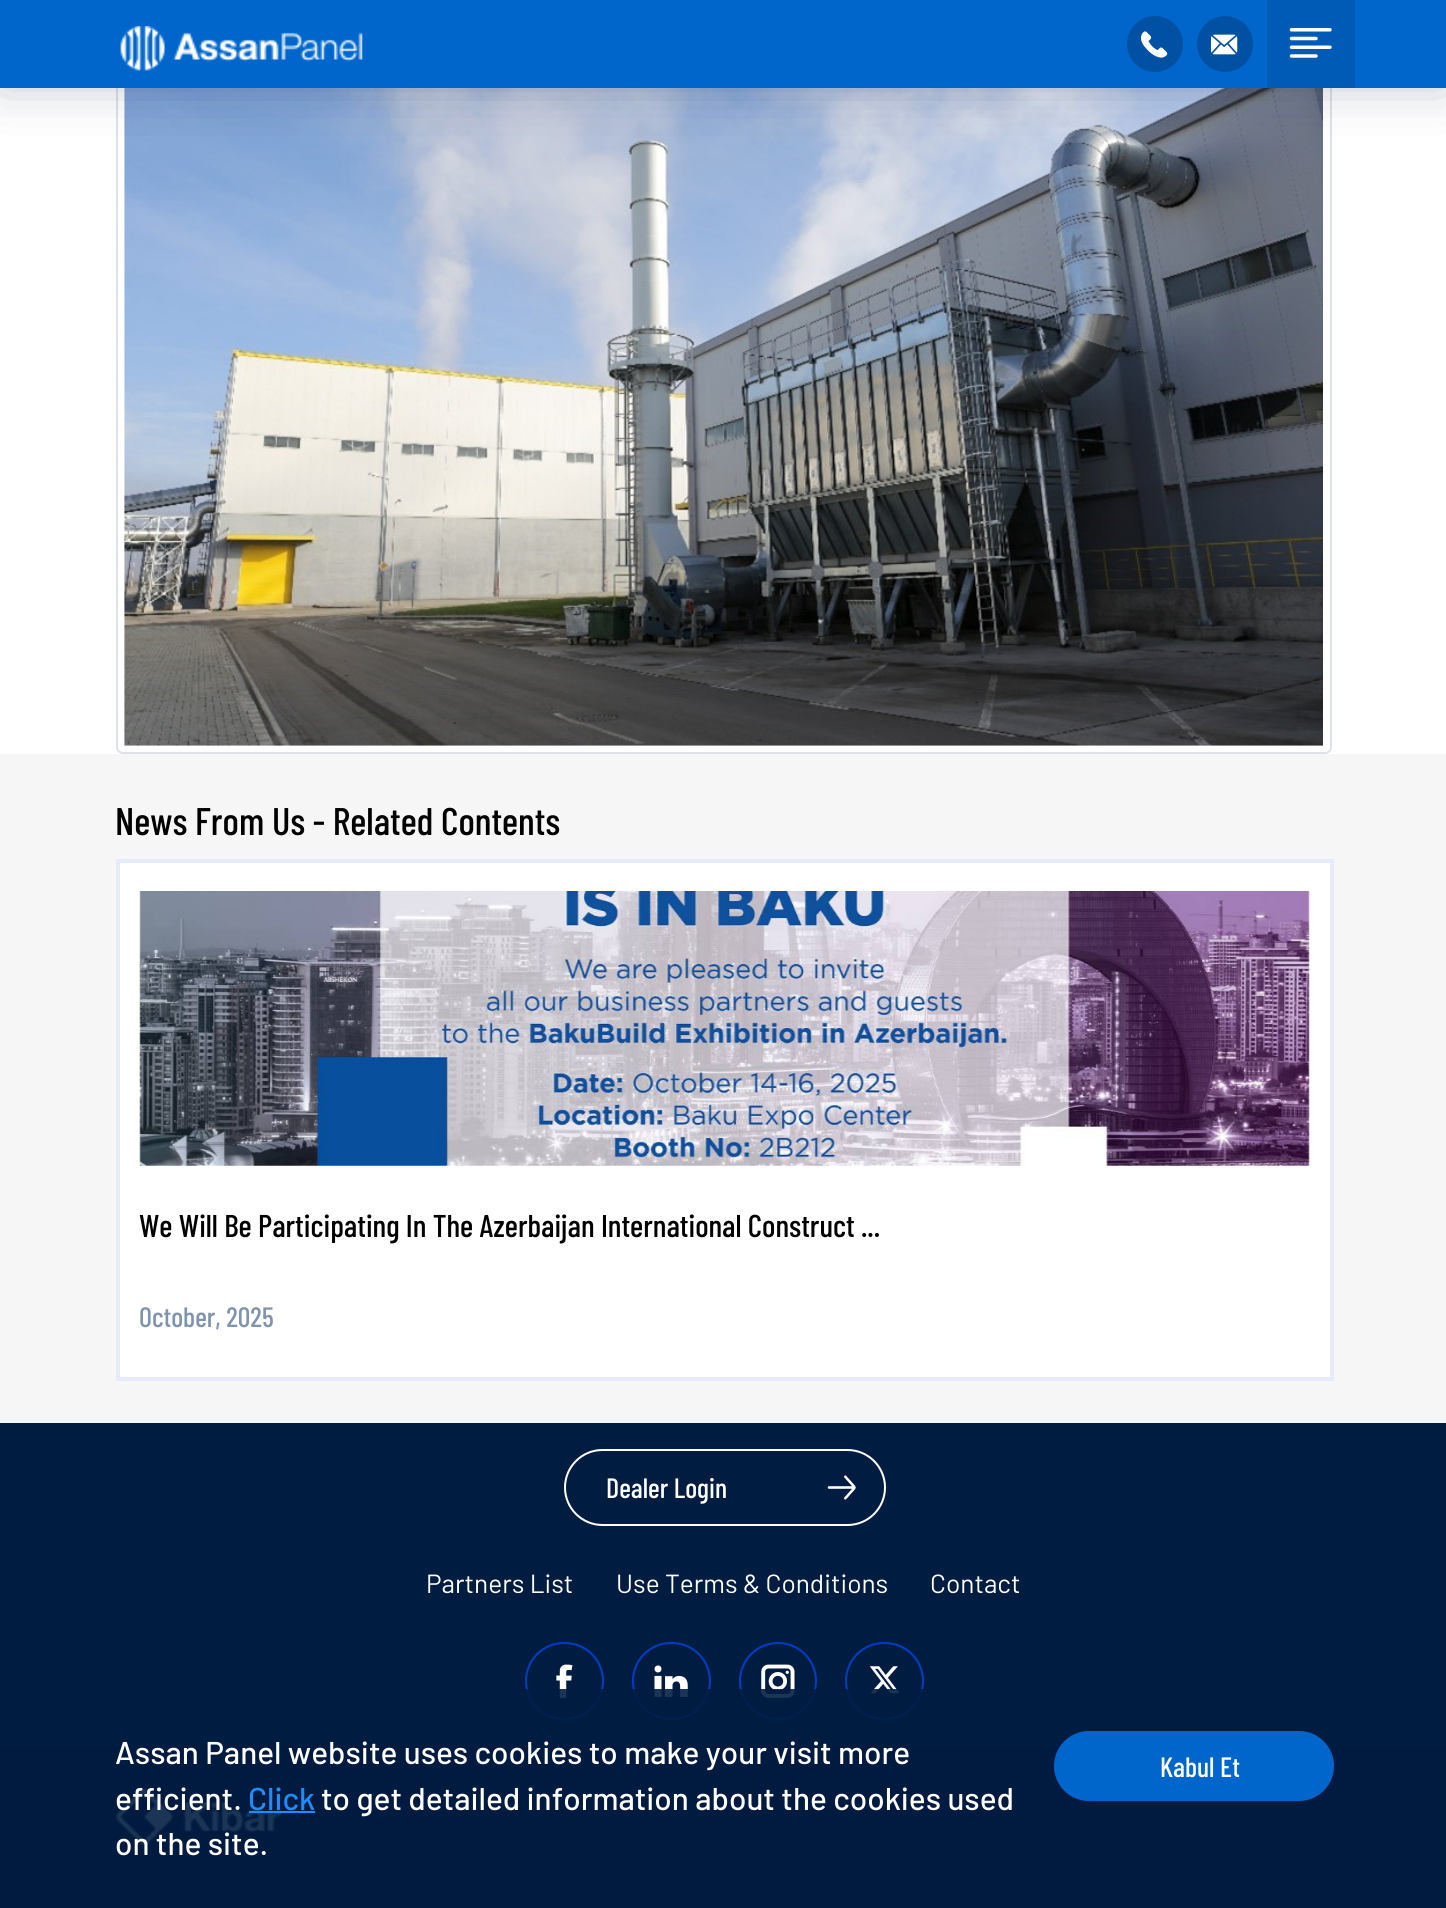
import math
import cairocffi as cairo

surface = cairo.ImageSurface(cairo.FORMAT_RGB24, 1446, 1908)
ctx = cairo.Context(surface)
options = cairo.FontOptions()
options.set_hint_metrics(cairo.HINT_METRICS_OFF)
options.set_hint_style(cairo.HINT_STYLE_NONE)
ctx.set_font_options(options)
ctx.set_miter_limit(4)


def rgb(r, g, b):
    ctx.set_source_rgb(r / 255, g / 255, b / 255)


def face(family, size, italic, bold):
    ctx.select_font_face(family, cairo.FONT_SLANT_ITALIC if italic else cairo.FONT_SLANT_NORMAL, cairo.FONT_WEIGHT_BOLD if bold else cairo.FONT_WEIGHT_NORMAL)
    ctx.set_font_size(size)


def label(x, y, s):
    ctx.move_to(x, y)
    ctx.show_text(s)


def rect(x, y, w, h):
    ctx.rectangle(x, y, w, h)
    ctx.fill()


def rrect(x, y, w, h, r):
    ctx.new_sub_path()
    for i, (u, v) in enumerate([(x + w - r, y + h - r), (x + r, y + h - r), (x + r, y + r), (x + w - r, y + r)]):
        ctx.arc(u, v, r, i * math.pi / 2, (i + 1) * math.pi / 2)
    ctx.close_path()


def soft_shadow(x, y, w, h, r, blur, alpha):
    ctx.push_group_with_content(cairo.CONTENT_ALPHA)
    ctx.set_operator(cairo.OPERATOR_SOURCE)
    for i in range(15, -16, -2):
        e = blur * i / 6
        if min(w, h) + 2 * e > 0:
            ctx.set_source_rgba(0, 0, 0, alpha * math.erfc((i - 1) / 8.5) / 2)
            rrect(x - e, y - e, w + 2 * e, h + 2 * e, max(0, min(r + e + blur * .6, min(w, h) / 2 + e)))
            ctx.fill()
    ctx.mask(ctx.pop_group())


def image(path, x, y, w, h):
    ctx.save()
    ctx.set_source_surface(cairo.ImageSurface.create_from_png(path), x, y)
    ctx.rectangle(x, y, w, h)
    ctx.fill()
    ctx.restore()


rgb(255, 255, 255)
ctx.paint()
rrect(117, -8, 1214, 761, 6)
rgb(222, 226, 230)
ctx.stroke()
image('image4.png', 124, 88, 1199, 658)
rgb(7, 22, 60)
soft_shadow(0, 0, 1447, 88, 0, 26, 0.12)
soft_shadow(0, 0, 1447, 88, 0, 26, 0.12)
rgb(0, 102, 204)
rect(0, 0, 1446, 88)
image('image0.png', 120, 26, 243, 45)
rgb(0, 81, 163)
ctx.arc(1155, 44, 28, 0, 2 * math.pi)
ctx.fill()
image('image1.png', 1141, 31, 27, 27)
ctx.arc(1225, 44, 28, 0, 2 * math.pi)
ctx.fill()
image('image2.png', 1211, 34, 27, 21)
rgb(0, 91, 183)
rect(1267, 0, 88, 88)
image('image3.png', 1289, 28, 43, 30)
rgb(246, 246, 246)
rect(0, 754, 1446, 669)
face('Barlow Condensed Medium', 38.5, 0, 0)
rgb(0, 0, 0)
label(115, 835, 'News From Us - Related Contents')
rgb(255, 255, 255)
ctx.rectangle(118, 861, 1214, 518)
ctx.fill_preserve()
rgb(229, 235, 249)
ctx.set_line_width(4)
ctx.stroke()
image('image5.png', 139, 891, 1171, 275)
face('Barlow Condensed Medium', 31.5, 0, 0)
rgb(0, 0, 0)
label(139, 1237, 'We Will Be Participating In The Azerbaijan International Construct ...')
face('Barlow Condensed Medium', 28, 0, 0)
rgb(128, 148, 173)
label(139, 1327, 'October, 2025')
rgb(0, 29, 65)
rect(0, 1423, 1446, 324)
rrect(565, 1450, 320, 75, 37.5)
rgb(255, 255, 255)
ctx.set_line_width(2)
ctx.stroke()
label(606, 1498, 'Dealer Login')
image('image6.png', 827, 1475, 29, 25)
face('Barlow', 26.25, 0, 0)
label(426, 1593, 'Partners List')
label(616, 1593, 'Use Terms & Conditions')
label(930, 1593, 'Contact')
rrect(526, 1643, 77, 76, 38)
rgb(0, 61, 197)
ctx.stroke()
image('image7.png', 556, 1664, 17, 34)
rrect(633, 1643, 77, 76, 38)
ctx.stroke()
image('image8.png', 654, 1665, 34, 32)
ctx.arc(778, 1681, 38, 0, 2 * math.pi)
ctx.stroke()
image('image9.png', 761, 1664, 34, 34)
rrect(846, 1643, 77, 76, 38)
ctx.stroke()
image('image10.png', 869, 1666, 31, 28)
rgb(0, 21, 47)
rect(0, 1747, 1446, 161)
image('image11.png', 115, 1788, 167, 57)
ctx.set_source_rgba(0, 0.114, 0.255, 0.89)
rect(0, 1689, 1446, 219)
face('Barlow Medium', 31.5, 0, 0)
rgb(255, 255, 255)
label(115, 1764, 'Assan Panel website uses cookies to make your visit more')
label(115, 1810, 'efficient.')
rgb(26, 141, 255)
label(248, 1810, 'Click')
rect(249, 1811, 66, 2)
rgb(255, 255, 255)
label(321, 1810, 'to get detailed information about the cookies used')
label(115, 1855, 'on the site.')
rgb(0, 102, 204)
rrect(1054, 1731, 280, 70, 35)
ctx.fill()
face('Barlow Condensed Medium', 28, 0, 0)
rgb(255, 255, 255)
label(1160, 1777, 'Kabul Et')
surface.write_to_png('render.png')
